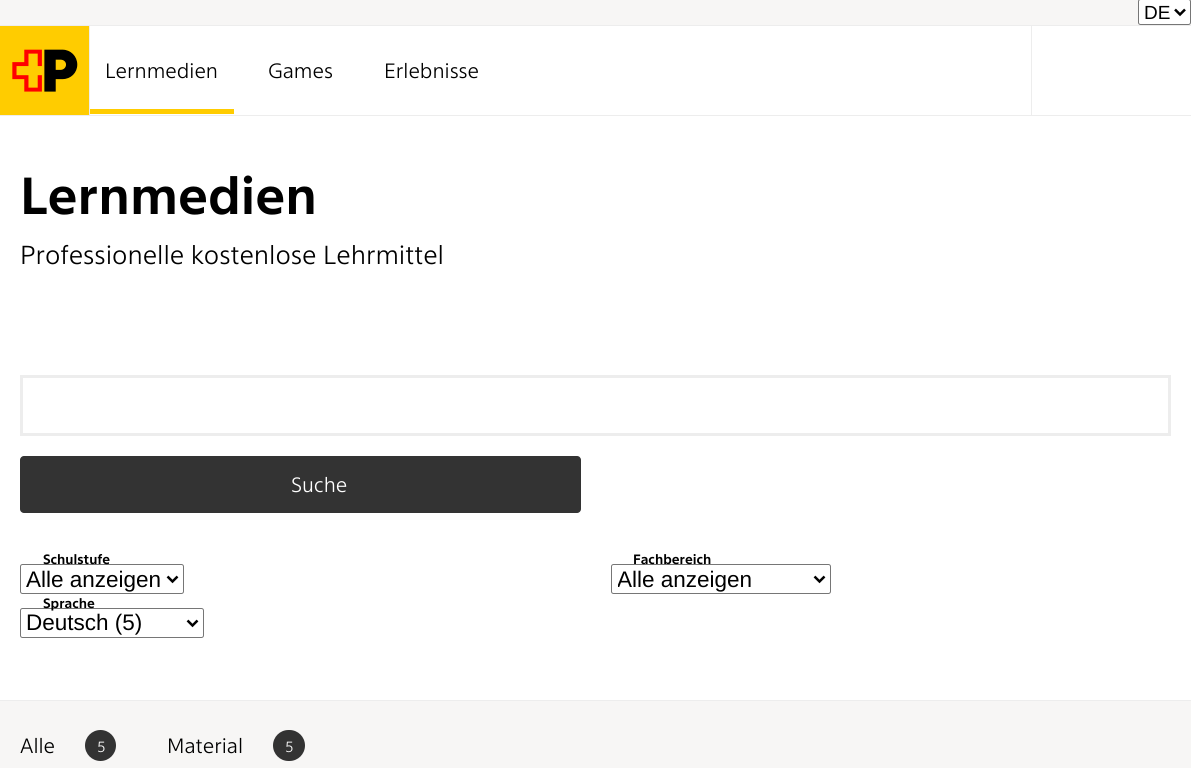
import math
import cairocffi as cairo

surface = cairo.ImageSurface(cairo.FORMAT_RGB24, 1191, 768)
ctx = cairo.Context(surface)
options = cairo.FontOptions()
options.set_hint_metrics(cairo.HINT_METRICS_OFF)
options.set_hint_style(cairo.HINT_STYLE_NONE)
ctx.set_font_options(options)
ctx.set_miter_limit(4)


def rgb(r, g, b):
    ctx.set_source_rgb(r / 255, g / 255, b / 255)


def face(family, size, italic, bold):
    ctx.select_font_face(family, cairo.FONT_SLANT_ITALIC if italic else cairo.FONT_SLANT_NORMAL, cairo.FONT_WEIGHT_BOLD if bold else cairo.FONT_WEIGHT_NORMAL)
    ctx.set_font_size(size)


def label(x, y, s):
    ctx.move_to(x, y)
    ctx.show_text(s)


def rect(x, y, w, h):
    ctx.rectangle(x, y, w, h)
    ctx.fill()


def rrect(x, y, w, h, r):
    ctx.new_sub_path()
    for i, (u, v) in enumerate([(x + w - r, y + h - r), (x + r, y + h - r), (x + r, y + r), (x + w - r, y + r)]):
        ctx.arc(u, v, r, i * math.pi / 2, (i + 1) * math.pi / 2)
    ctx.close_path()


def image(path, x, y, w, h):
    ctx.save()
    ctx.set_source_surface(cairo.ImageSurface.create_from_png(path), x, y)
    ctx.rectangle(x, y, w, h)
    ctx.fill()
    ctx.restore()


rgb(255, 255, 255)
ctx.paint()
rgb(237, 237, 237)
rect(0, 115, 1191, 1)
rgb(247, 246, 245)
rect(0, 0, 1191, 25)
rgb(237, 237, 237)
rect(0, 25, 1191, 1)
rgb(255, 255, 255)
rrect(1138.5, -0.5, 52, 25, 2)
ctx.fill_preserve()
rgb(118, 118, 118)
ctx.set_line_width(1)
ctx.stroke()
ctx.new_path()
ctx.move_to(1175, 9.5)
ctx.line_to(1180, 14.5)
ctx.line_to(1185, 9.5)
rgb(0, 0, 0)
ctx.set_line_width(2.5)
ctx.stroke()
face('Liberation Sans', 19, 0, 0)
label(1144, 19, 'DE')
rgb(255, 204, 0)
rect(0, 26, 89, 89)
rgb(237, 237, 237)
rect(89, 26, 1, 89)
image('image0.png', 12, 49, 66, 43)
face('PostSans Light', 21, 0, 0)
rgb(0, 0, 0)
label(105, 78, 'Lernmedien')
rgb(255, 204, 0)
rect(90, 109, 144, 5)
rgb(0, 0, 0)
label(268, 78, 'Games')
label(384, 78, 'Erlebnisse')
rgb(237, 237, 237)
rect(1031, 26, 1, 89)
face('PostSans', 52.75, 0, 1)
rgb(0, 0, 0)
label(20, 214, 'Lernmedien')
face('PostSans Light', 26.4, 0, 0)
label(20, 264, 'Professionelle kostenlose Lehrmittel')
ctx.rectangle(21.5, 376.5, 1148, 58)
rgb(237, 237, 237)
ctx.set_line_width(3)
ctx.stroke()
rgb(51, 51, 51)
rrect(20, 456, 561, 57, 4)
ctx.fill()
face('PostSans Light', 21, 0, 0)
rgb(255, 255, 255)
label(291, 492, 'Suche')
rrect(20.5, 564.5, 163, 29, 2)
rgb(118, 118, 118)
ctx.set_line_width(1)
ctx.stroke()
face('PostSans', 13.75, 0, 1)
rgb(0, 0, 0)
label(43, 564, 'Schulstufe')
ctx.new_path()
ctx.move_to(167.5, 576.5)
ctx.line_to(172.5, 581.5)
ctx.line_to(177.5, 576.5)
ctx.set_line_width(2.5)
ctx.stroke()
face('Liberation Sans', 22.5, 0, 0)
label(26, 587, 'Alle anzeigen')
rrect(611.5, 564.5, 219, 29, 2)
rgb(118, 118, 118)
ctx.set_line_width(1)
ctx.stroke()
face('PostSans', 13.75, 0, 1)
rgb(0, 0, 0)
label(633, 564, 'Fachbereich')
ctx.new_path()
ctx.move_to(814.5, 576.5)
ctx.line_to(819.5, 581.5)
ctx.line_to(824.5, 576.5)
ctx.set_line_width(2.5)
ctx.stroke()
ctx.save()
ctx.rectangle(618, 565, 192, 28)
ctx.clip()
face('Liberation Sans', 22.5, 0, 0)
label(617, 587, 'Alle anzeigen')
ctx.restore()
rrect(20.5, 608.5, 183, 29, 2)
rgb(118, 118, 118)
ctx.set_line_width(1)
ctx.stroke()
rgb(0, 0, 0)
label(43, 608, 'Sprache')
ctx.new_path()
ctx.move_to(187.5, 620.5)
ctx.line_to(192.5, 625.5)
ctx.line_to(197.5, 620.5)
ctx.set_line_width(2.5)
ctx.stroke()
face('Liberation Sans', 22.5, 0, 0)
label(26, 630, 'Deutsch (5)')
rgb(247, 246, 245)
rect(0, 701, 1191, 67)
rgb(237, 237, 237)
rect(0, 700, 1191, 1)
face('PostSans Light', 21, 0, 0)
rgb(0, 0, 0)
label(20, 753, 'Alle')
rgb(51, 51, 51)
ctx.new_path()
ctx.arc(100.5, 745.5, 15.5, 0, 2 * math.pi)
ctx.fill()
face('PostSans Light', 15, 0, 0)
rgb(255, 255, 255)
label(97, 752, '5')
face('PostSans Light', 21, 0, 0)
rgb(0, 0, 0)
label(167, 753, 'Material')
rgb(51, 51, 51)
rrect(273, 730, 32, 31, 15.5)
ctx.fill()
face('PostSans Light', 15, 0, 0)
rgb(255, 255, 255)
label(285, 752, '5')
surface.write_to_png('render.png')
